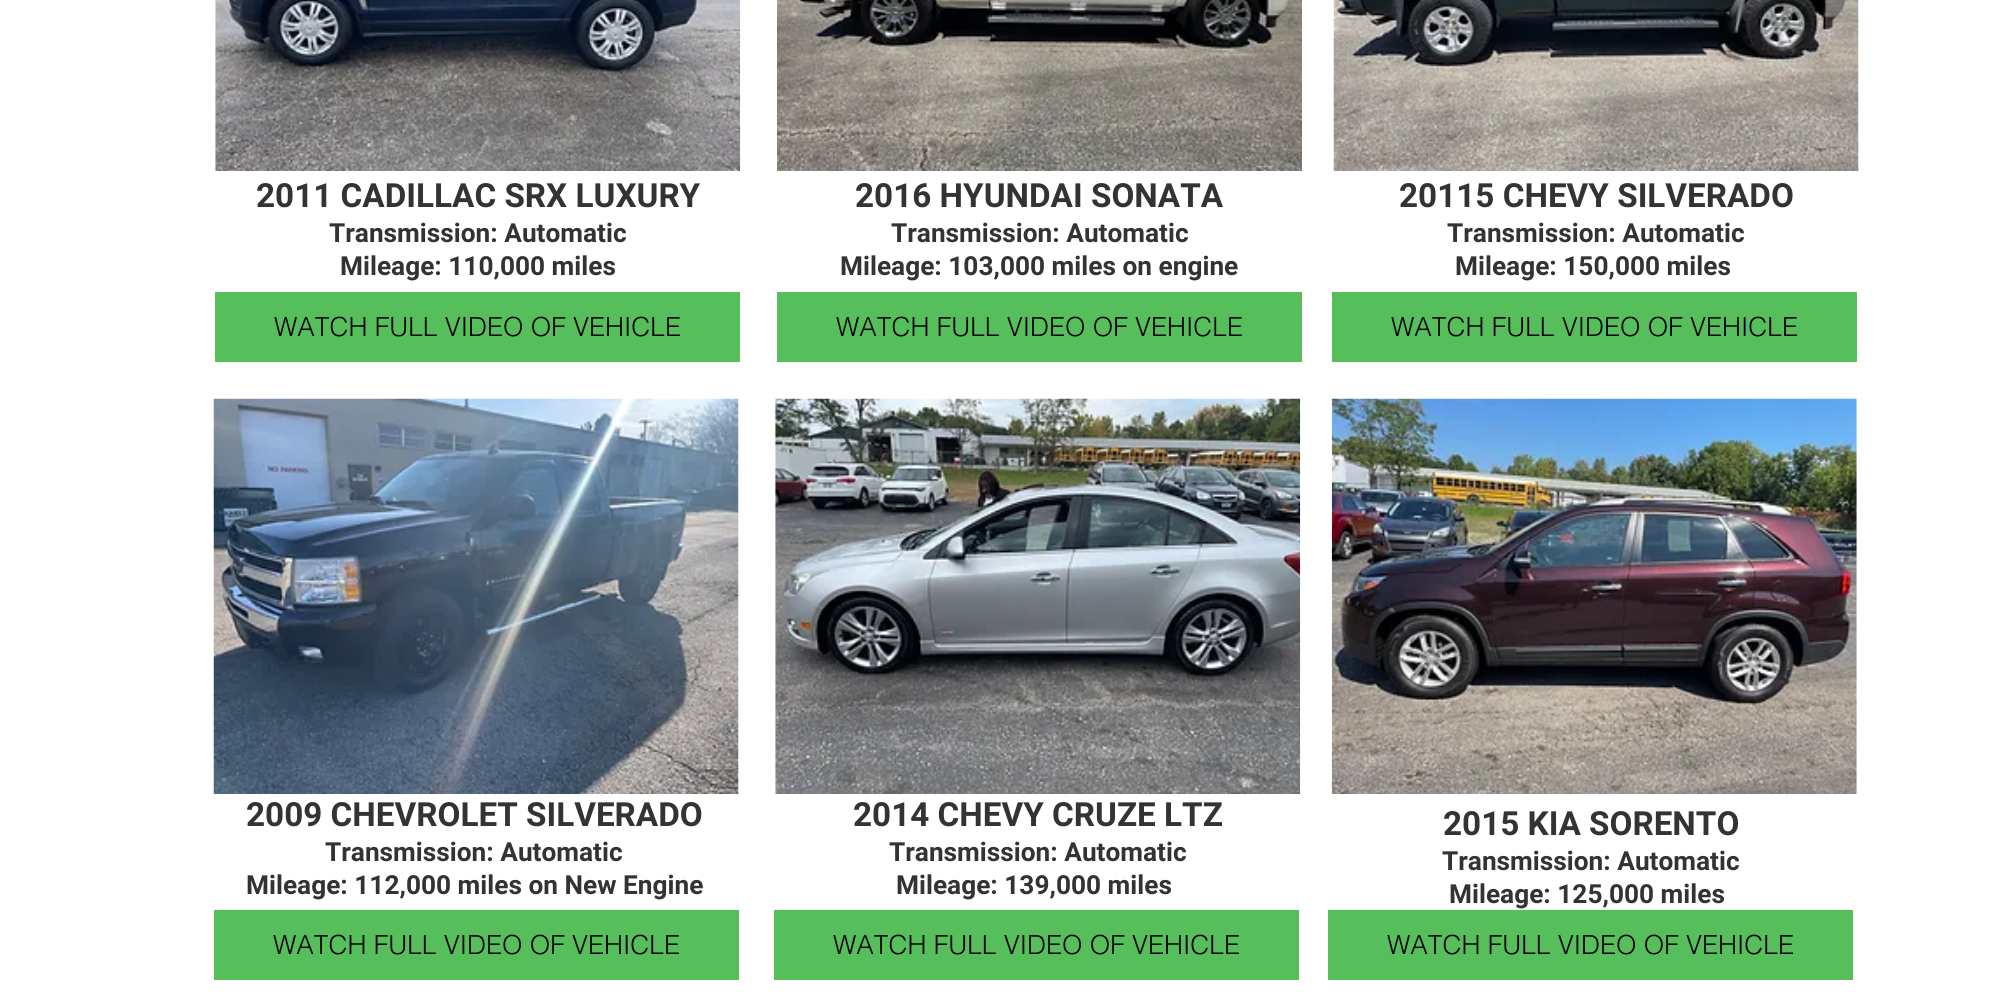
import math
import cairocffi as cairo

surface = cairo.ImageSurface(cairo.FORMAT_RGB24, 1998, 1002)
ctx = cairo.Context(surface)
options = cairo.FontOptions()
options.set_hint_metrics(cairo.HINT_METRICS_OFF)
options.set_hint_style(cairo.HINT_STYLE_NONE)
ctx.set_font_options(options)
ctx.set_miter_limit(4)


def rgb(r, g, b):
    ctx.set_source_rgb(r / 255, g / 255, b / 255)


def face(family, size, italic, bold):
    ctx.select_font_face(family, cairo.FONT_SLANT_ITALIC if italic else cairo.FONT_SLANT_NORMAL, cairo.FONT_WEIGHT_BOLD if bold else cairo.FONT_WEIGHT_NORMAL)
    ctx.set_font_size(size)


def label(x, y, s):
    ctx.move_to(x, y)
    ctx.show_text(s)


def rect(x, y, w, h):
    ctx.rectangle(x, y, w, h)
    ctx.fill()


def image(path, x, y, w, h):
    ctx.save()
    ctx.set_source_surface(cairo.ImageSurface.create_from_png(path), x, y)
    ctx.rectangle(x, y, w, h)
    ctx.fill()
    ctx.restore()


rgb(255, 255, 255)
ctx.paint()
image('image0.png', 215, 0, 526, 171)
image('image1.png', 777, 0, 525, 171)
image('image2.png', 1333, 0, 526, 171)
face('Roboto', 33.25, 0, 1)
rgb(51, 51, 51)
label(256, 207, '2011 CADILLAC SRX LUXURY')
face('Roboto', 26.25, 0, 1)
label(329, 242, 'Transmission: Automatic')
label(340, 275, 'Mileage: 110,000 miles')
face('Roboto', 33.25, 0, 1)
label(855, 207, '2016 HYUNDAI SONATA')
face('Roboto', 26.25, 0, 1)
label(891, 242, 'Transmission: Automatic')
label(840, 275, 'Mileage: 103,000 miles on engine')
face('Roboto', 33.25, 0, 1)
label(1399, 207, '20115 CHEVY SILVERADO')
face('Roboto', 26.25, 0, 1)
label(1447, 242, 'Transmission: Automatic')
label(1455, 275, 'Mileage: 150,000 miles')
rgb(86, 191, 91)
rect(215, 292, 525, 70)
face('helvetica Light', 26.25, 0, 0)
rgb(0, 0, 0)
label(274, 336, 'WATCH FULL VIDEO OF VEHICLE')
rgb(86, 191, 91)
rect(777, 292, 525, 70)
rgb(0, 0, 0)
label(836, 336, 'WATCH FULL VIDEO OF VEHICLE')
rgb(86, 191, 91)
rect(1332, 292, 525, 70)
rgb(0, 0, 0)
label(1391, 336, 'WATCH FULL VIDEO OF VEHICLE')
image('image3.png', 213, 398, 526, 396)
image('image4.png', 775, 398, 526, 396)
image('image5.png', 1331, 398, 526, 396)
face('Roboto', 33.25, 0, 1)
rgb(51, 51, 51)
label(246, 826, '2009 CHEVROLET SILVERADO')
face('Roboto', 26.25, 0, 1)
label(325, 861, 'Transmission: Automatic')
label(246, 894, 'Mileage: 112,000 miles on New Engine')
face('Roboto', 33.25, 0, 1)
label(853, 826, '2014 CHEVY CRUZE LTZ')
face('Roboto', 26.25, 0, 1)
label(889, 861, 'Transmission: Automatic')
label(896, 894, 'Mileage: 139,000 miles')
face('Roboto', 33.25, 0, 1)
label(1443, 835, '2015 KIA SORENTO')
face('Roboto', 26.25, 0, 1)
label(1442, 870, 'Transmission: Automatic')
label(1449, 903, 'Mileage: 125,000 miles')
rgb(86, 191, 91)
rect(214, 910, 525, 70)
face('helvetica Light', 26.25, 0, 0)
rgb(0, 0, 0)
label(273, 954, 'WATCH FULL VIDEO OF VEHICLE')
rgb(86, 191, 91)
rect(774, 910, 525, 70)
rgb(0, 0, 0)
label(833, 954, 'WATCH FULL VIDEO OF VEHICLE')
rgb(86, 191, 91)
rect(1328, 910, 525, 70)
rgb(0, 0, 0)
label(1387, 954, 'WATCH FULL VIDEO OF VEHICLE')
surface.write_to_png('render.png')
